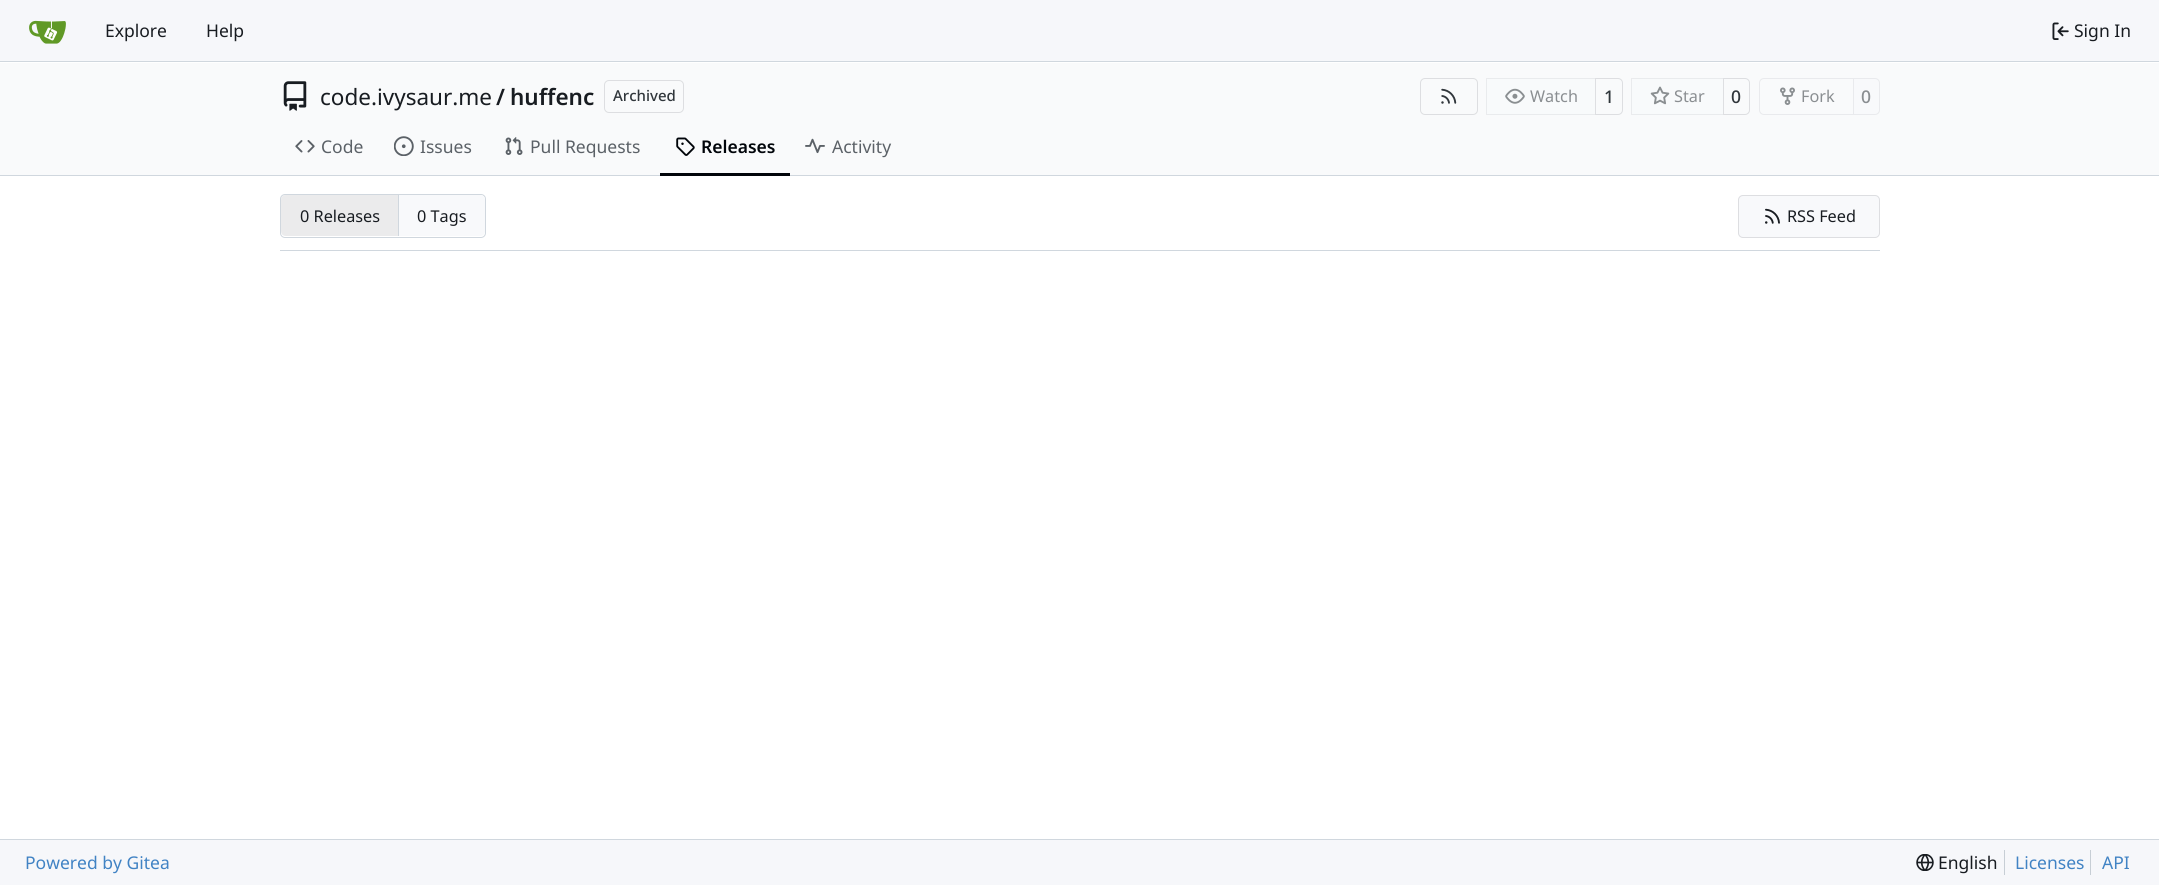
import math
import cairocffi as cairo

surface = cairo.ImageSurface(cairo.FORMAT_RGB24, 2159, 885)
ctx = cairo.Context(surface)
options = cairo.FontOptions()
options.set_hint_metrics(cairo.HINT_METRICS_OFF)
options.set_hint_style(cairo.HINT_STYLE_NONE)
ctx.set_font_options(options)
ctx.set_miter_limit(4)


def rgb(r, g, b):
    ctx.set_source_rgb(r / 255, g / 255, b / 255)


def face(family, size, italic, bold):
    ctx.select_font_face(family, cairo.FONT_SLANT_ITALIC if italic else cairo.FONT_SLANT_NORMAL, cairo.FONT_WEIGHT_BOLD if bold else cairo.FONT_WEIGHT_NORMAL)
    ctx.set_font_size(size)


def label(x, y, s):
    ctx.move_to(x, y)
    ctx.show_text(s)


def rect(x, y, w, h):
    ctx.rectangle(x, y, w, h)
    ctx.fill()


def rrect(x, y, w, h, r):
    ctx.new_sub_path()
    for i, (u, v) in enumerate([(x + w - r, y + h - r), (x + r, y + h - r), (x + r, y + r), (x + w - r, y + r)]):
        ctx.arc(u, v, r, i * math.pi / 2, (i + 1) * math.pi / 2)
    ctx.close_path()


def image(path, x, y, w, h):
    ctx.save()
    ctx.set_source_surface(cairo.ImageSurface.create_from_png(path), x, y)
    ctx.rectangle(x, y, w, h)
    ctx.fill()
    ctx.restore()


rgb(255, 255, 255)
ctx.paint()
rgb(246, 247, 250)
rect(0, 0, 2159, 61)
rgb(208, 215, 222)
rect(0, 61, 2159, 1)
image('image0.png', 29, 20, 37, 24)
face('Noto Sans', 17.5, 0, 0)
rgb(24, 28, 33)
label(105, 37, 'Explore')
label(206, 37, 'Help')
image('image1.png', 2052, 22, 17, 18)
label(2074, 37, 'Sign In')
rgb(249, 250, 251)
rect(0, 63, 2159, 112)
image('image2.png', 283, 81, 24, 30)
face('Noto Sans', 22.5, 0, 0)
rgb(24, 28, 33)
label(320, 105, 'code.ivysaur.me')
face('Noto Sans SemiBold', 22.5, 0, 0)
label(496, 105, '/')
label(510, 105, 'huffenc')
rrect(604.5, 80.5, 79, 32, 4.5)
rgb(221, 222, 225)
ctx.set_line_width(1)
ctx.stroke()
face('Noto Sans Medium', 15, 0, 0)
rgb(48, 54, 59)
label(613, 101, 'Archived')
rrect(1420.5, 78.5, 57, 36, 4.5)
rgb(221, 222, 225)
ctx.stroke()
image('image3.png', 1441, 88, 16, 16)
ctx.new_path()
ctx.move_to(1595.5, 78.5)
ctx.line_to(1618, 78.5)
ctx.curve_to(1620.5, 78.5, 1622.5, 80.5, 1622.5, 83)
ctx.line_to(1622.5, 110)
ctx.curve_to(1622.5, 112.5, 1620.5, 114.5, 1618, 114.5)
ctx.line_to(1595.5, 114.5)
ctx.close_path()
ctx.stroke()
ctx.set_source_rgba(0.973, 0.976, 0.984, 0.55)
ctx.new_path()
ctx.move_to(1491, 78)
ctx.line_to(1596, 78)
ctx.line_to(1596, 115)
ctx.line_to(1491, 115)
ctx.curve_to(1488, 115, 1486, 113, 1486, 110)
ctx.line_to(1486, 83)
ctx.curve_to(1486, 80, 1488, 78, 1491, 78)
ctx.close_path()
ctx.fill()
ctx.rectangle(1486.5, 78.5, 109, 36)
ctx.set_source_rgba(0, 0, 0.09, 0.06)
ctx.stroke()
image('image4.png', 1505, 88, 20, 16)
face('Noto Sans', 16.25, 0, 0)
rgb(138, 142, 145)
label(1530, 102, 'Watch')
face('Noto Sans Medium', 17.5, 0, 0)
rgb(48, 54, 59)
label(1604, 103, '1')
ctx.new_path()
ctx.move_to(1723.5, 78.5)
ctx.line_to(1745, 78.5)
ctx.curve_to(1747.5, 78.5, 1749.5, 80.5, 1749.5, 83)
ctx.line_to(1749.5, 110)
ctx.curve_to(1749.5, 112.5, 1747.5, 114.5, 1745, 114.5)
ctx.line_to(1723.5, 114.5)
ctx.close_path()
rgb(221, 222, 225)
ctx.stroke()
ctx.set_source_rgba(0.973, 0.976, 0.984, 0.55)
ctx.new_path()
ctx.move_to(1636, 78)
ctx.line_to(1724, 78)
ctx.line_to(1724, 115)
ctx.line_to(1636, 115)
ctx.curve_to(1633, 115, 1631, 113, 1631, 110)
ctx.line_to(1631, 83)
ctx.curve_to(1631, 80, 1633, 78, 1636, 78)
ctx.close_path()
ctx.fill()
ctx.rectangle(1631.5, 78.5, 92, 36)
ctx.set_source_rgba(0, 0, 0.09, 0.06)
ctx.stroke()
image('image5.png', 1650, 86, 20, 19)
face('Noto Sans', 16.25, 0, 0)
rgb(138, 142, 145)
label(1674, 102, 'Star')
face('Noto Sans Medium', 17.5, 0, 0)
rgb(48, 54, 59)
label(1731, 103, '0')
ctx.new_path()
ctx.move_to(1764, 78.5)
ctx.line_to(1853.5, 78.5)
ctx.line_to(1853.5, 114.5)
ctx.line_to(1764, 114.5)
ctx.curve_to(1761.5, 114.5, 1759.5, 112.5, 1759.5, 110)
ctx.line_to(1759.5, 83)
ctx.curve_to(1759.5, 80.5, 1761.5, 78.5, 1764, 78.5)
ctx.close_path()
rgb(233, 234, 237)
ctx.stroke()
image('image6.png', 1780, 87, 15, 18)
face('Noto Sans', 16.25, 0, 0)
rgb(138, 142, 145)
label(1801, 102, 'Fork')
rgb(248, 249, 251)
ctx.new_path()
ctx.move_to(1853.5, 78.5)
ctx.line_to(1875, 78.5)
ctx.curve_to(1877.5, 78.5, 1879.5, 80.5, 1879.5, 83)
ctx.line_to(1879.5, 110)
ctx.curve_to(1879.5, 112.5, 1877.5, 114.5, 1875, 114.5)
ctx.line_to(1853.5, 114.5)
ctx.close_path()
ctx.fill_preserve()
rgb(233, 234, 237)
ctx.stroke()
face('Noto Sans Medium', 17.5, 0, 0)
rgb(138, 142, 145)
label(1861, 103, '0')
image('image7.png', 295, 140, 20, 13)
face('Noto Sans', 17.5, 0, 0)
rgb(91, 97, 103)
label(321, 153, 'Code')
image('image8.png', 394, 136, 20, 20)
label(420, 153, 'Issues')
image('image9.png', 505, 137, 18, 18)
label(530, 153, 'Pull Requests')
rgb(208, 215, 222)
rect(0, 175, 2159, 1)
rgb(1, 5, 10)
rect(660, 173, 130, 3)
image('image10.png', 676, 137, 19, 19)
face('Noto Sans SemiBold', 17.5, 0, 0)
label(701, 153, 'Releases')
image('image11.png', 805, 138, 20, 16)
face('Noto Sans', 17.5, 0, 0)
rgb(91, 97, 103)
label(832, 153, 'Activity')
rrect(280.5, 194.5, 205, 43, 4.5)
rgb(208, 215, 222)
ctx.stroke()
ctx.set_source_rgba(0, 0, 0.09, 0.08)
ctx.new_path()
ctx.move_to(286, 195)
ctx.line_to(399, 195)
ctx.line_to(399, 236)
ctx.line_to(286, 236)
ctx.curve_to(283, 236, 281, 234, 281, 231)
ctx.line_to(281, 200)
ctx.curve_to(281, 197, 283, 195, 286, 195)
ctx.close_path()
ctx.fill()
face('Noto Sans', 16.25, 0, 0)
rgb(24, 28, 33)
label(300, 222, '0 Releases')
rgb(208, 215, 222)
rect(398, 195, 1, 41)
rgb(248, 249, 251)
ctx.new_path()
ctx.move_to(399, 195)
ctx.line_to(480, 195)
ctx.curve_to(483, 195, 485, 197, 485, 200)
ctx.line_to(485, 231)
ctx.curve_to(485, 234, 483, 236, 480, 236)
ctx.line_to(399, 236)
ctx.close_path()
ctx.fill()
rgb(24, 28, 33)
label(417, 222, '0 Tags')
rgb(248, 249, 251)
rrect(1738, 195, 142, 43, 5)
ctx.fill()
rrect(1738.5, 195.5, 141, 42, 4.5)
ctx.set_source_rgba(0, 0, 0.09, 0.11)
ctx.stroke()
image('image12.png', 1765, 208, 15, 16)
rgb(24, 28, 33)
label(1787, 222, 'RSS Feed')
rgb(208, 215, 222)
rect(280, 250, 1600, 1)
rgb(246, 247, 250)
rect(0, 840, 2159, 45)
rgb(208, 215, 222)
rect(0, 839, 2159, 1)
face('Noto Sans', 17.5, 0, 0)
rgb(65, 131, 196)
label(25, 869, 'Powered by Gitea')
image('image13.png', 1916, 854, 18, 17)
rgb(24, 28, 33)
label(1938, 869, 'English')
rgb(199, 206, 213)
rect(2004, 850, 1, 25)
rgb(65, 131, 196)
label(2015, 869, 'Licenses')
rgb(199, 206, 213)
rect(2090, 850, 1, 25)
rgb(65, 131, 196)
label(2102, 869, 'API')
surface.write_to_png('render.png')
